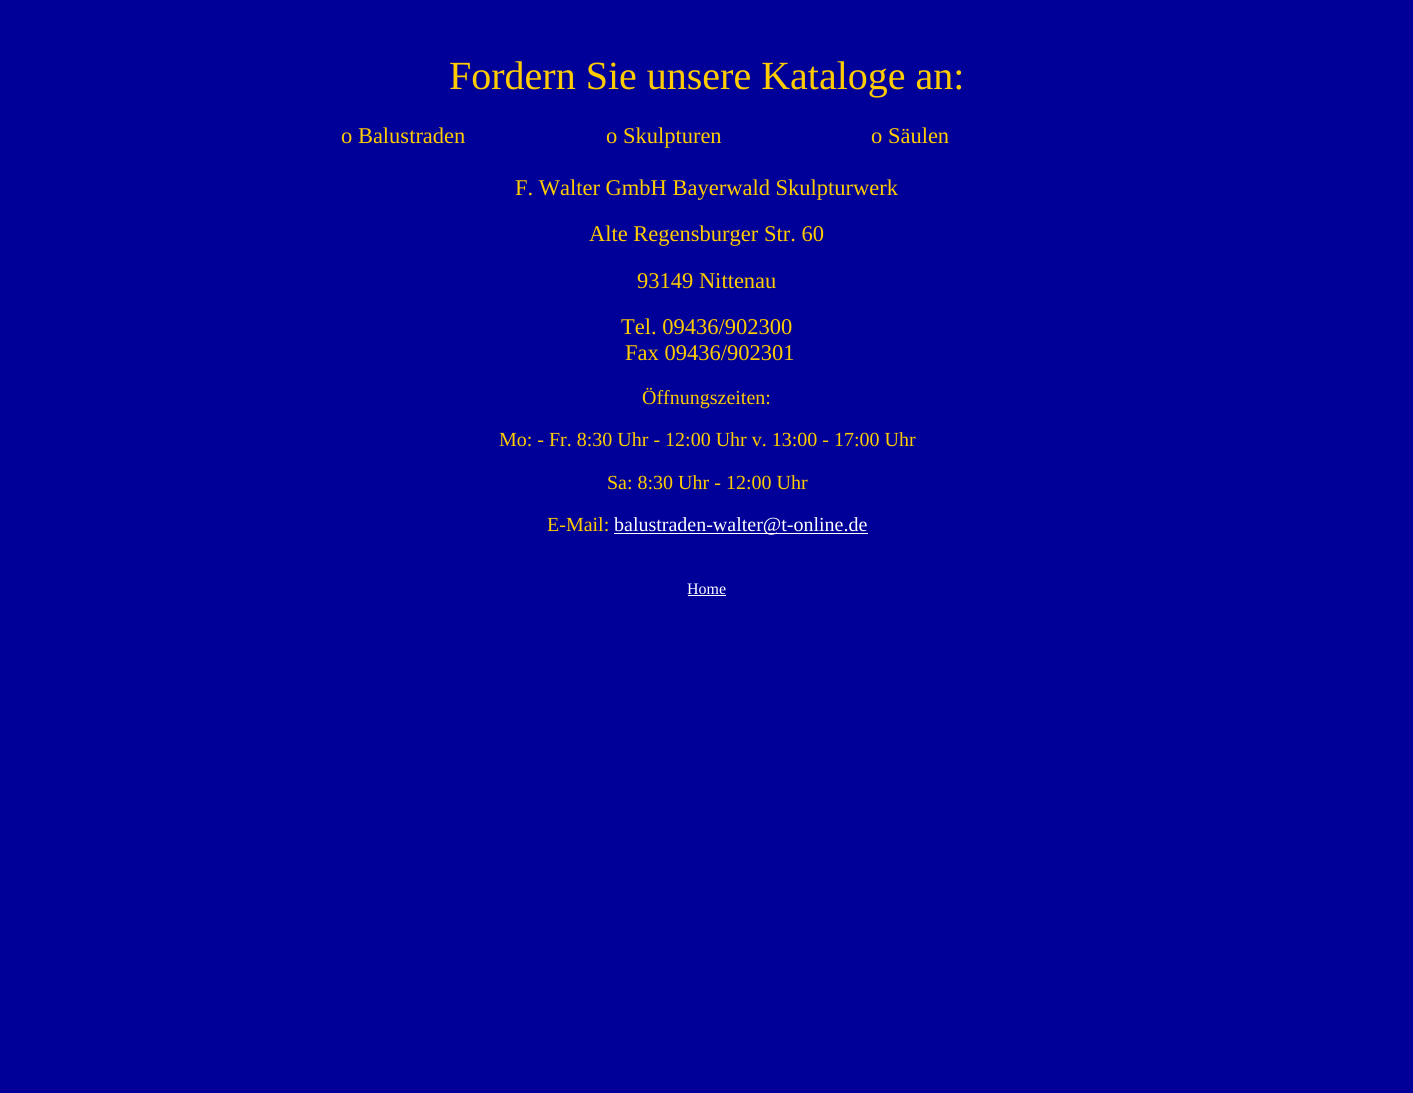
import math
import cairocffi as cairo

surface = cairo.ImageSurface(cairo.FORMAT_RGB24, 1413, 1093)
ctx = cairo.Context(surface)
options = cairo.FontOptions()
options.set_hint_metrics(cairo.HINT_METRICS_OFF)
options.set_hint_style(cairo.HINT_STYLE_NONE)
ctx.set_font_options(options)
ctx.set_miter_limit(4)


def rgb(r, g, b):
    ctx.set_source_rgb(r / 255, g / 255, b / 255)


def face(family, size, italic, bold):
    ctx.select_font_face(family, cairo.FONT_SLANT_ITALIC if italic else cairo.FONT_SLANT_NORMAL, cairo.FONT_WEIGHT_BOLD if bold else cairo.FONT_WEIGHT_NORMAL)
    ctx.set_font_size(size)


def label(x, y, s):
    ctx.move_to(x, y)
    ctx.show_text(s)


def rect(x, y, w, h):
    ctx.rectangle(x, y, w, h)
    ctx.fill()


rgb(0, 0, 153)
ctx.paint()
face('Liberation Serif', 40, 0, 0)
rgb(255, 204, 0)
label(449, 89, 'Fordern Sie unsere Kataloge an:')
face('Liberation Serif', 22.5, 0, 0)
label(341, 143, 'o Balustraden')
label(606, 143, 'o Skulpturen')
label(871, 143, 'o Säulen')
label(515, 195, 'F. Walter GmbH Bayerwald Skulpturwerk')
label(589, 241, 'Alte Regensburger Str. 60')
label(637, 288, '93149 Nittenau')
label(621, 334, 'Tel. 09436/902300')
label(625, 360, 'Fax 09436/902301')
face('Liberation Serif', 20, 0, 0)
label(642, 404, 'Öffnungszeiten:')
label(499, 446, 'Mo: - Fr. 8:30 Uhr - 12:00 Uhr v. 13:00 - 17:00 Uhr')
label(607, 489, 'Sa: 8:30 Uhr - 12:00 Uhr')
label(547, 531, 'E-Mail:')
rgb(255, 255, 255)
rect(614, 533, 254, 1)
label(614, 531, 'balustraden-walter@t-online.de')
face('Liberation Serif', 16, 0, 0)
label(687, 594, 'Home')
rect(688, 595, 38, 1)
surface.write_to_png('render.png')
